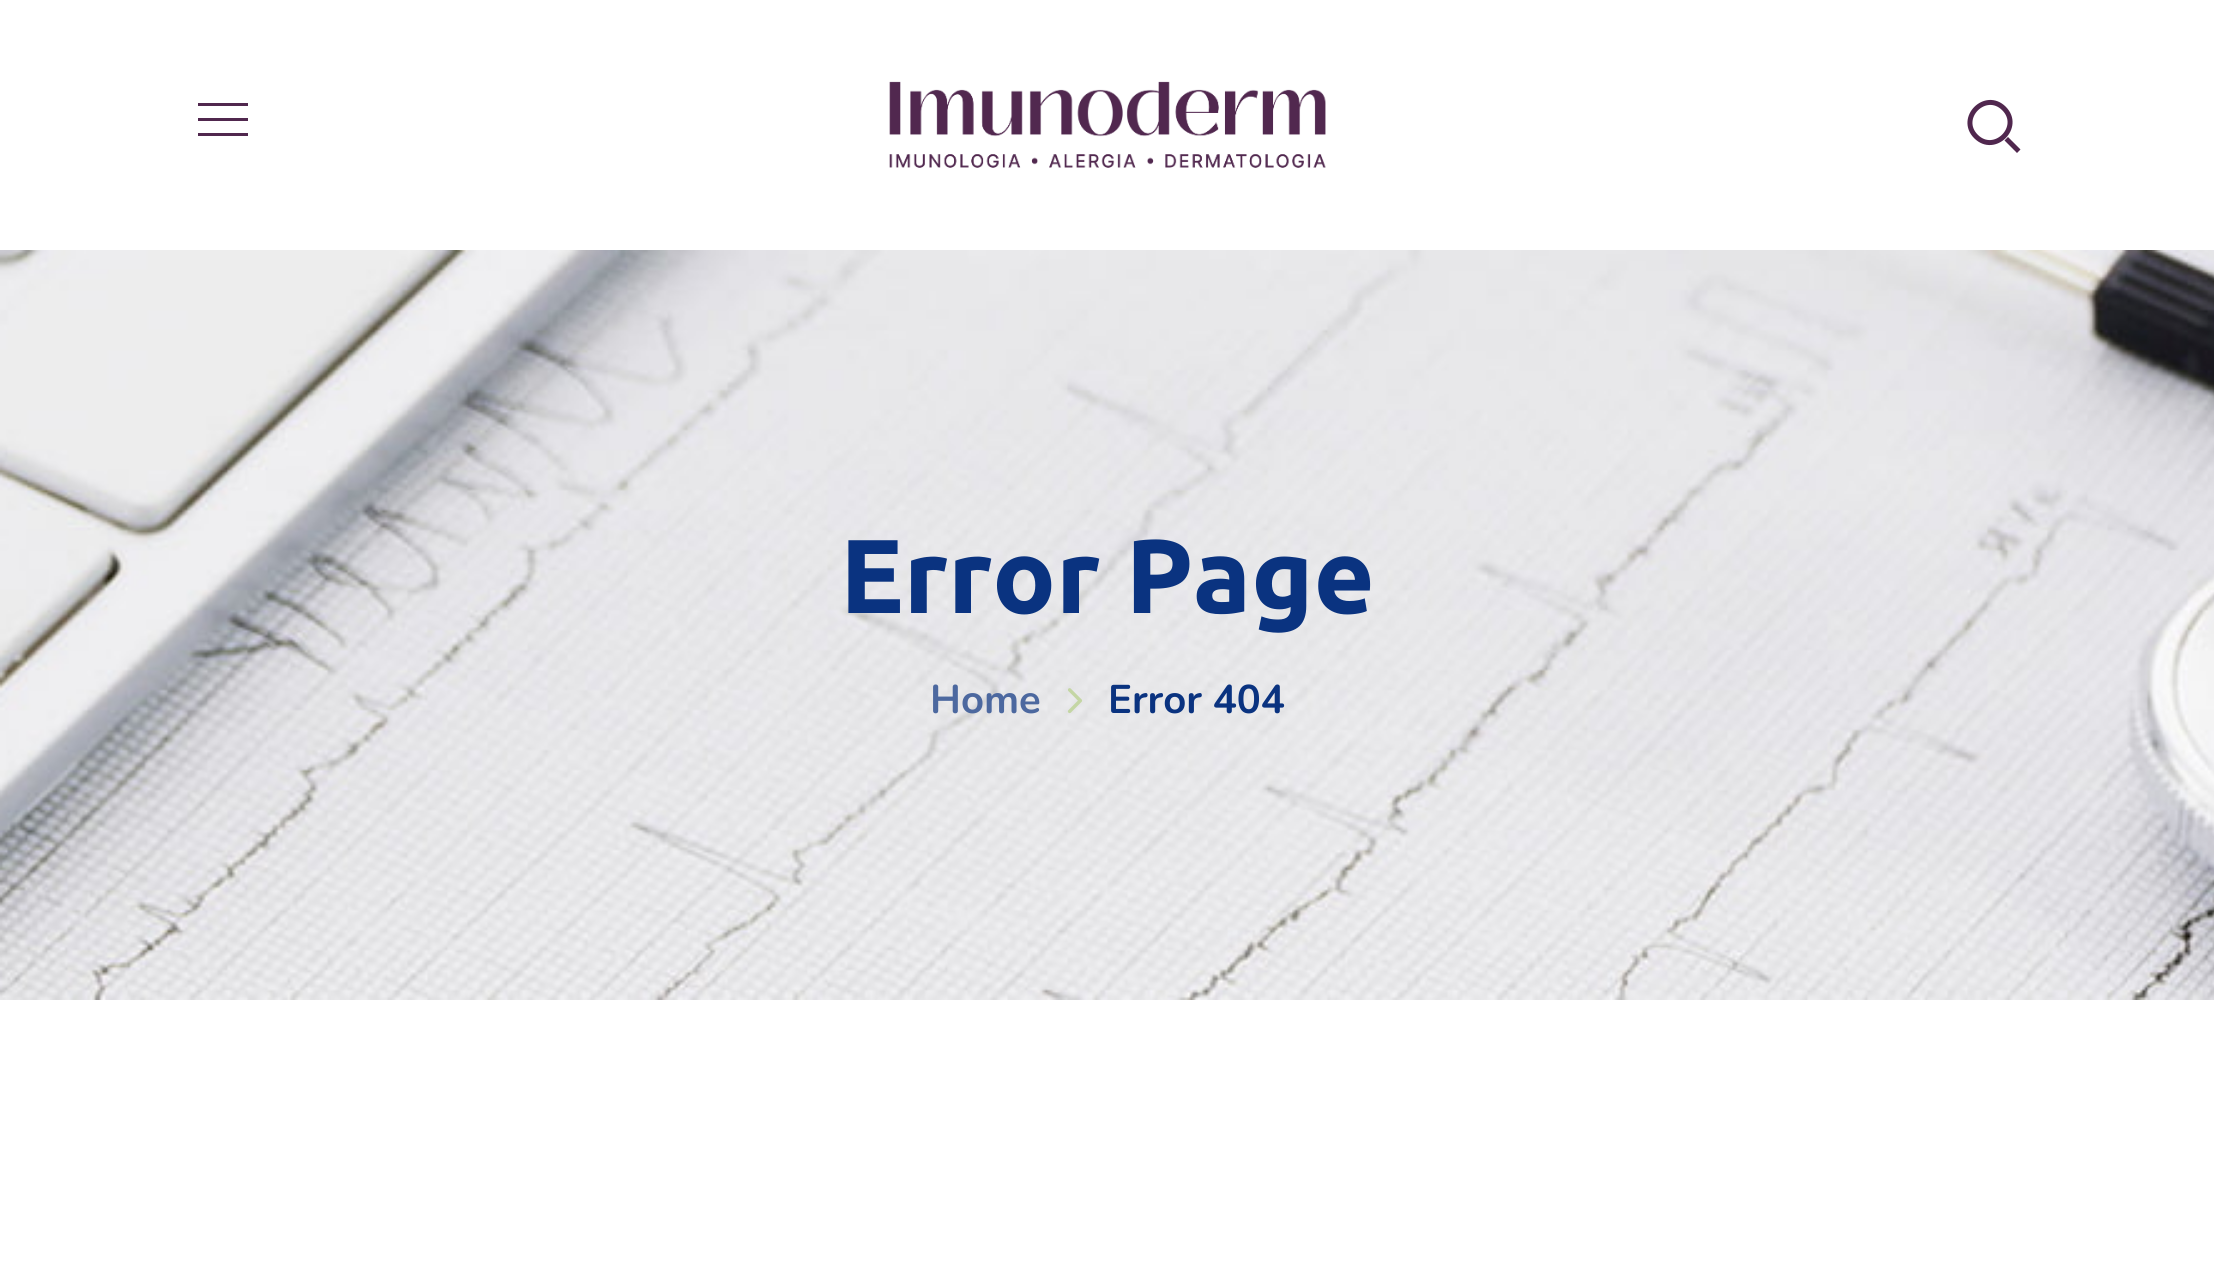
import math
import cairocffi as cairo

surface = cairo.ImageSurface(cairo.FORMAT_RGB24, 2214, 1288)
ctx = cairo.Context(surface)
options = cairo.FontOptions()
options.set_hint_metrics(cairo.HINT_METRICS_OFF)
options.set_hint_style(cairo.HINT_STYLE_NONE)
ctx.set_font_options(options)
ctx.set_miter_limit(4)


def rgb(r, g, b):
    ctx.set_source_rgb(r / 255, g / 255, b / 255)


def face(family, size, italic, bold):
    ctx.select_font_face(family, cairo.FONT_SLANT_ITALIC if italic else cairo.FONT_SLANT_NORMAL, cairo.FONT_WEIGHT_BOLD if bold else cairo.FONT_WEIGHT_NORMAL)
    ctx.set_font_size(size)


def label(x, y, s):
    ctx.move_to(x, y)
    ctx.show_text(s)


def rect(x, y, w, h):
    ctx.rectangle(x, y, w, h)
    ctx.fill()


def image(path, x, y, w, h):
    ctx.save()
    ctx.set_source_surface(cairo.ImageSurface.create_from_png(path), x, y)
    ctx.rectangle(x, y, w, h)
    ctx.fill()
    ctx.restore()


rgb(255, 255, 255)
ctx.paint()
rgb(80, 39, 78)
rect(198, 103, 50, 3)
rect(198, 118, 50, 3)
rect(198, 133, 50, 3)
image('image0.png', 889, 81, 437, 87)
ctx.new_path()
ctx.move_to(2004, 108.5)
ctx.curve_to(2022.5, 127, 1994.5, 155, 1976, 136.5)
ctx.curve_to(1957.5, 118, 1985.5, 90, 2004, 108.5)
ctx.close_path()
ctx.set_line_width(5)
ctx.stroke()
ctx.new_path()
ctx.move_to(2004.5, 140.5)
ctx.line_to(2008, 137)
ctx.line_to(2020.5, 149.5)
ctx.line_to(2017, 153)
ctx.close_path()
ctx.fill()
image('image1.png', 0, 250, 2214, 750)
face('Ubuntu', 105, 0, 1)
rgb(10, 51, 128)
label(840, 613, 'Error Page')
face('Nunito', 40, 0, 1)
rgb(76, 104, 159)
label(930, 713, 'Home')
image('image2.png', 1067, 688, 16, 26)
rgb(10, 51, 128)
label(1108, 713, 'Error 404')
surface.write_to_png('render.png')
